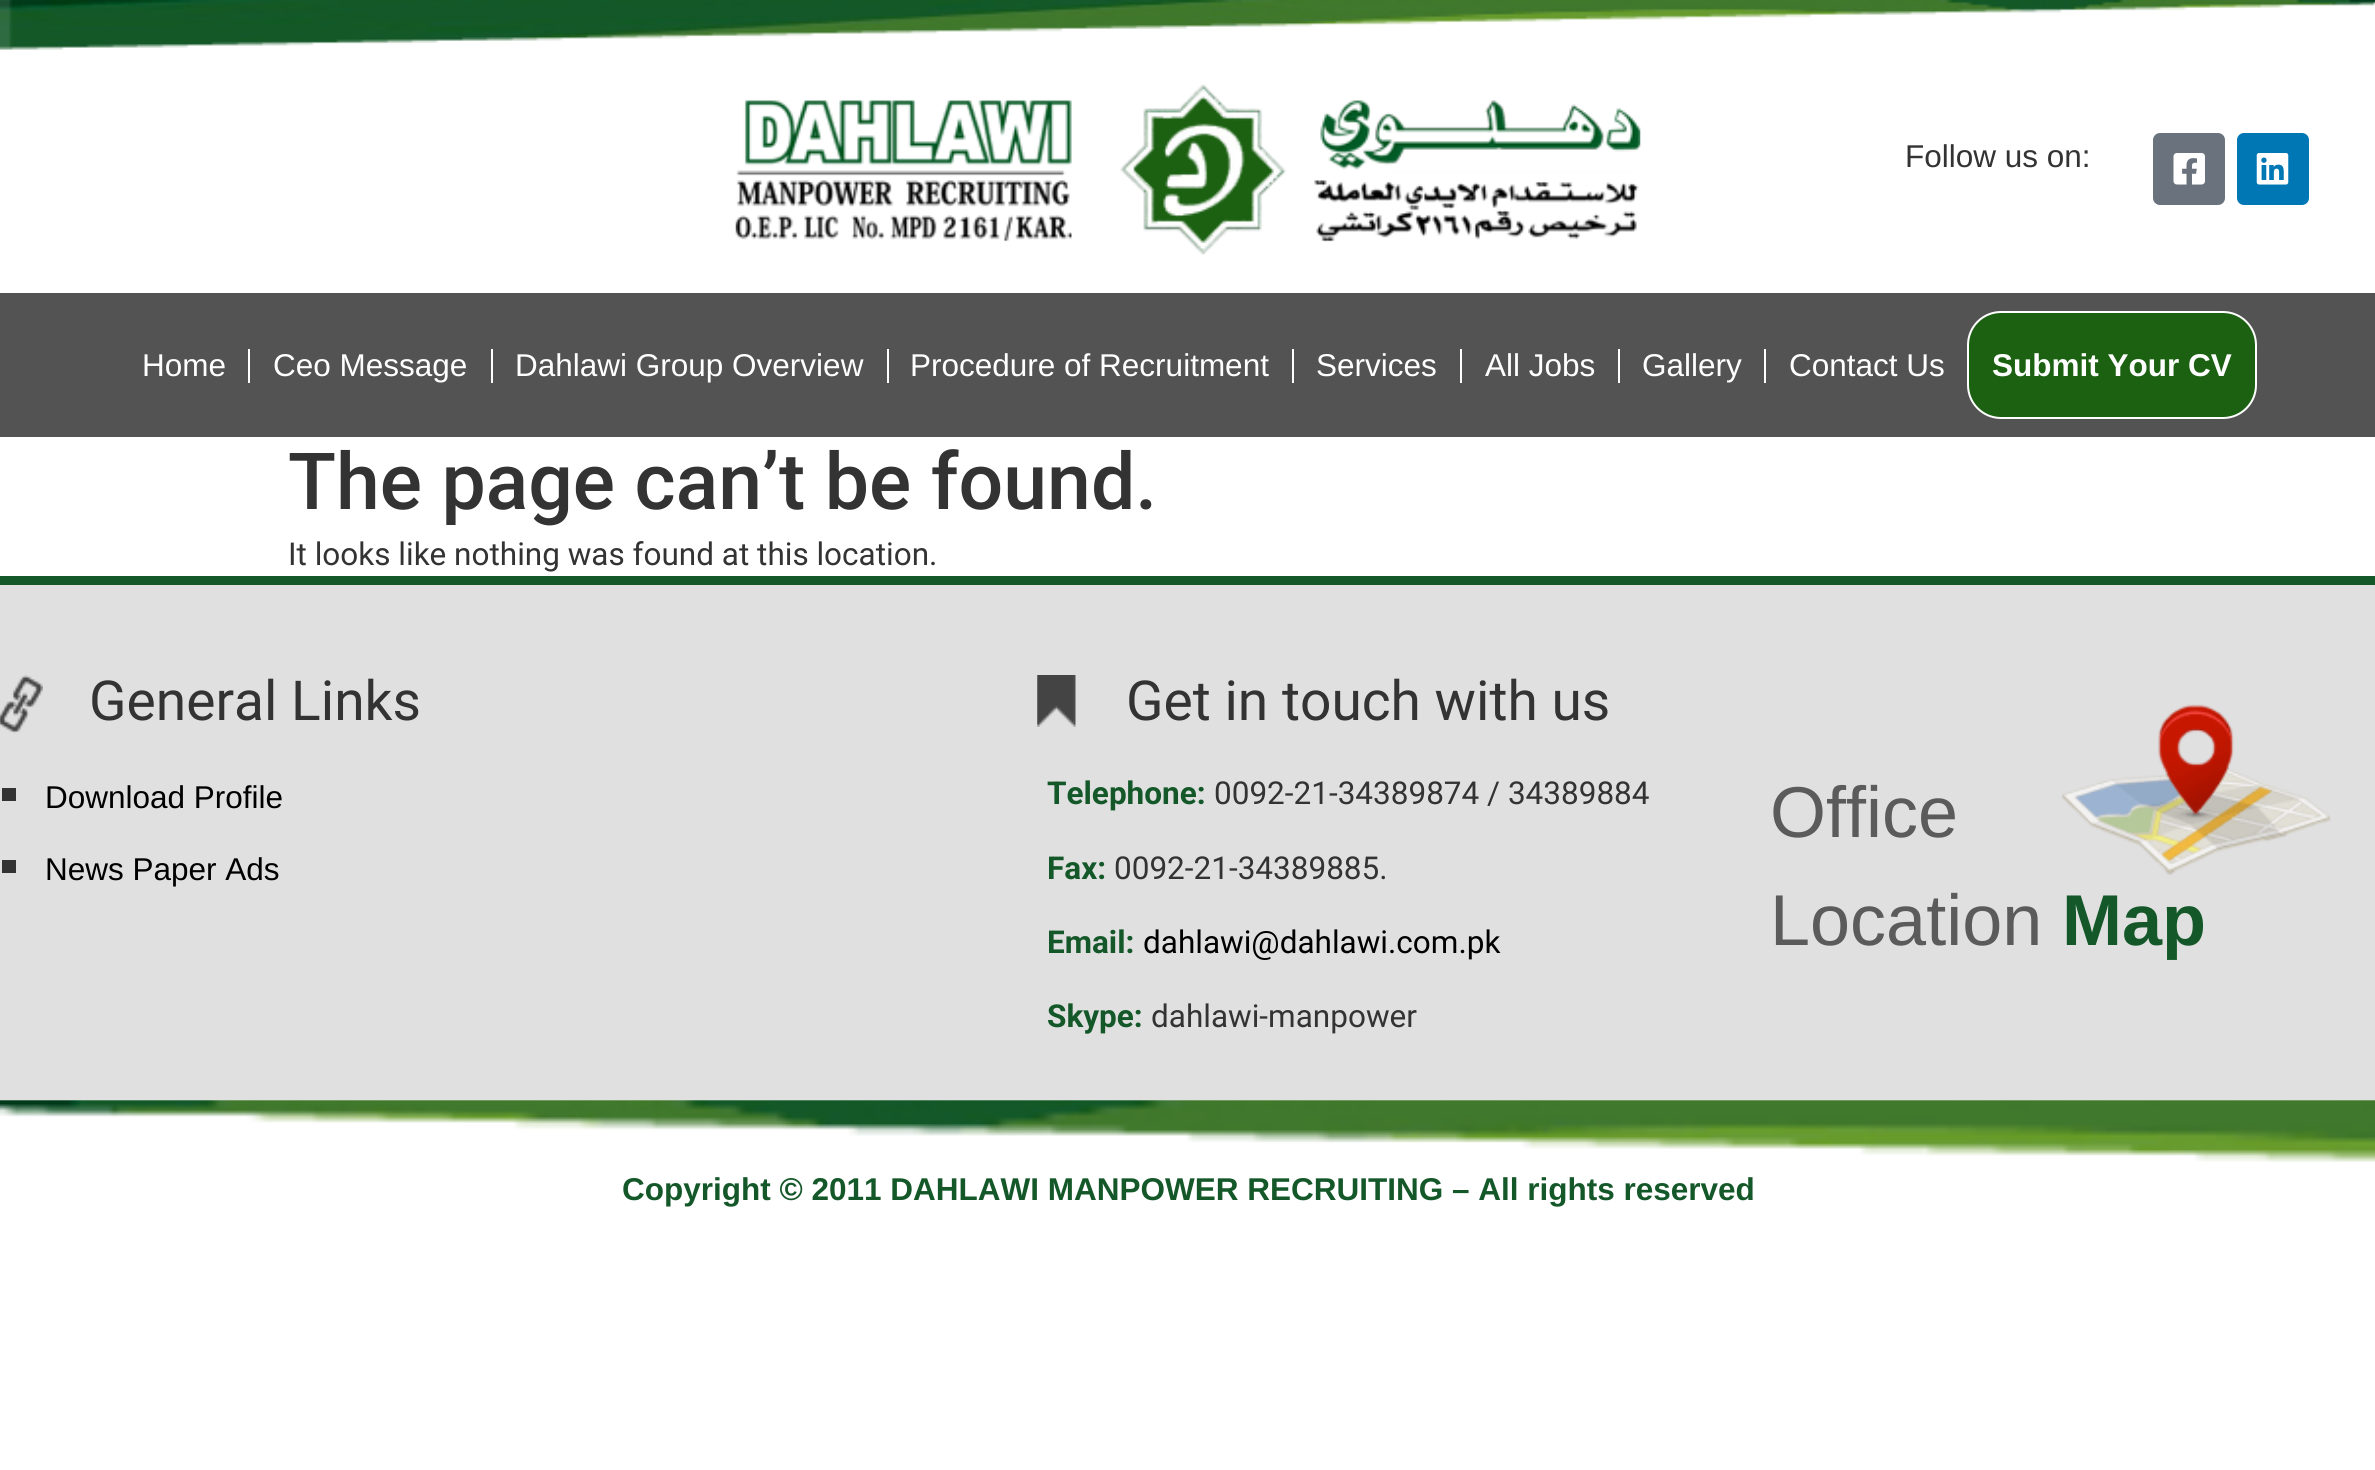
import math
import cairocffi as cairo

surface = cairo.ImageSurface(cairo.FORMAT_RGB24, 2375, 1470)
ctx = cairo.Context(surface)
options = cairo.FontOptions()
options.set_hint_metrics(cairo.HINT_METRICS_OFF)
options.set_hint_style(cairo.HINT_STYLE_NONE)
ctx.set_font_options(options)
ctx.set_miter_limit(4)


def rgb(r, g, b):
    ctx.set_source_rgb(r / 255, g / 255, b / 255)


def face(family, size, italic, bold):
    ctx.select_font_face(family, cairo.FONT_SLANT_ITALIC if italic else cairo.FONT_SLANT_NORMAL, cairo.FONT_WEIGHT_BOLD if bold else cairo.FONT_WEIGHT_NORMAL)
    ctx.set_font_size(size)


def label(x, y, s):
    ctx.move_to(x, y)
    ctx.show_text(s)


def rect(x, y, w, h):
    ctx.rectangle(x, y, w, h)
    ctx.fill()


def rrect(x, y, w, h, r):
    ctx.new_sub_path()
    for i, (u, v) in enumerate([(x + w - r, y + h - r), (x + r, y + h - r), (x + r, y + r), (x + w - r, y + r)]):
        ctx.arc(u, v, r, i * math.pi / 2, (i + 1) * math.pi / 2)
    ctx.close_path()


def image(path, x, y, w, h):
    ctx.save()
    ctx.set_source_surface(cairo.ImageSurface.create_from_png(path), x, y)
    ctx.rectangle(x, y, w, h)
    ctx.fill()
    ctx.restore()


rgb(255, 255, 255)
ctx.paint()
image('image0.png', 0, 0, 2375, 50)
image('image1.png', 735, 84, 906, 171)
face('Liberation Sans', 31.5, 0, 0)
rgb(51, 51, 51)
label(1905, 167, 'Follow us on:')
rgb(105, 114, 125)
rrect(2153, 133, 72, 72, 7)
ctx.fill()
image('image2.png', 2173, 153, 32, 32)
rgb(0, 119, 181)
rrect(2237, 133, 72, 72, 7)
ctx.fill()
image('image3.png', 2256, 153, 33, 32)
rgb(83, 83, 83)
rect(0, 293, 2375, 144)
rgb(255, 255, 255)
label(142, 376, 'Home')
rect(248, 349, 2, 34)
label(273, 376, 'Ceo Message')
rect(491, 349, 2, 34)
label(515, 376, 'Dahlawi Group Overview')
rect(887, 349, 2, 34)
label(910, 376, 'Procedure of Recruitment')
rect(1292, 349, 2, 34)
label(1316, 376, 'Services')
rect(1460, 349, 2, 34)
label(1485, 376, 'All Jobs')
rect(1618, 349, 2, 34)
label(1642, 376, 'Gallery')
rect(1764, 349, 2, 34)
label(1789, 376, 'Contact Us')
rgb(28, 97, 18)
rrect(1968, 312, 288, 106, 33)
ctx.fill_preserve()
rgb(255, 255, 255)
ctx.stroke()
face('Liberation Sans', 31.5, 0, 1)
label(1992, 376, 'Submit Your CV')
face('Roboto Medium', 78.75, 0, 0)
rgb(51, 51, 51)
label(288, 509, 'The page can’t be found.')
face('Roboto', 31.5, 0, 0)
label(288, 565, 'It looks like nothing was found at this location.')
rgb(224, 224, 224)
rect(0, 585, 2375, 515)
rgb(20, 88, 41)
rect(0, 576, 2375, 9)
image('image4.png', 0, 675, 43, 59)
face('Roboto', 55.1, 0, 0)
rgb(51, 51, 51)
label(89, 720, 'General Links')
rect(2, 788, 14, 13)
face('Liberation Sans', 31.5, 0, 0)
rgb(0, 0, 0)
label(45, 808, 'Download Profile')
rgb(51, 51, 51)
rect(2, 860, 14, 13)
rgb(0, 0, 0)
label(45, 880, 'News Paper Ads')
image('image5.png', 1037, 675, 39, 52)
face('Roboto', 55.1, 0, 0)
rgb(51, 51, 51)
label(1126, 720, 'Get in touch with us')
face('Roboto', 31.5, 0, 1)
rgb(20, 88, 41)
label(1047, 804, 'Telephone:')
face('Roboto', 31.5, 0, 0)
rgb(51, 51, 51)
label(1214, 804, '0092-21-34389874 / 34389884')
face('Roboto', 31.5, 0, 1)
rgb(20, 88, 41)
label(1047, 879, 'Fax:')
face('Roboto', 31.5, 0, 0)
rgb(51, 51, 51)
label(1114, 879, '0092-21-34389885.')
face('Roboto', 31.5, 0, 1)
rgb(20, 88, 41)
label(1047, 953, 'Email:')
face('Roboto', 31.5, 0, 0)
rgb(0, 0, 0)
label(1143, 953, 'dahlawi@dahlawi.com.pk')
face('Roboto', 31.5, 0, 1)
rgb(20, 88, 41)
label(1047, 1027, 'Skype:')
face('Roboto', 31.5, 0, 0)
rgb(51, 51, 51)
label(1151, 1027, 'dahlawi-manpower')
image('image6.png', 2061, 704, 270, 171)
face('Liberation Sans', 72, 0, 0)
rgb(91, 91, 91)
label(1770, 837, 'Office')
label(1770, 945, 'Location')
face('Liberation Sans', 72, 0, 1)
rgb(20, 88, 41)
label(2062, 945, 'Map')
image('image7.png', 0, 1100, 2375, 62)
face('Liberation Sans', 31.5, 0, 1)
label(622, 1200, 'Copyright © 2011 DAHLAWI MANPOWER RECRUITING – All rights reserved')
surface.write_to_png('render.png')
